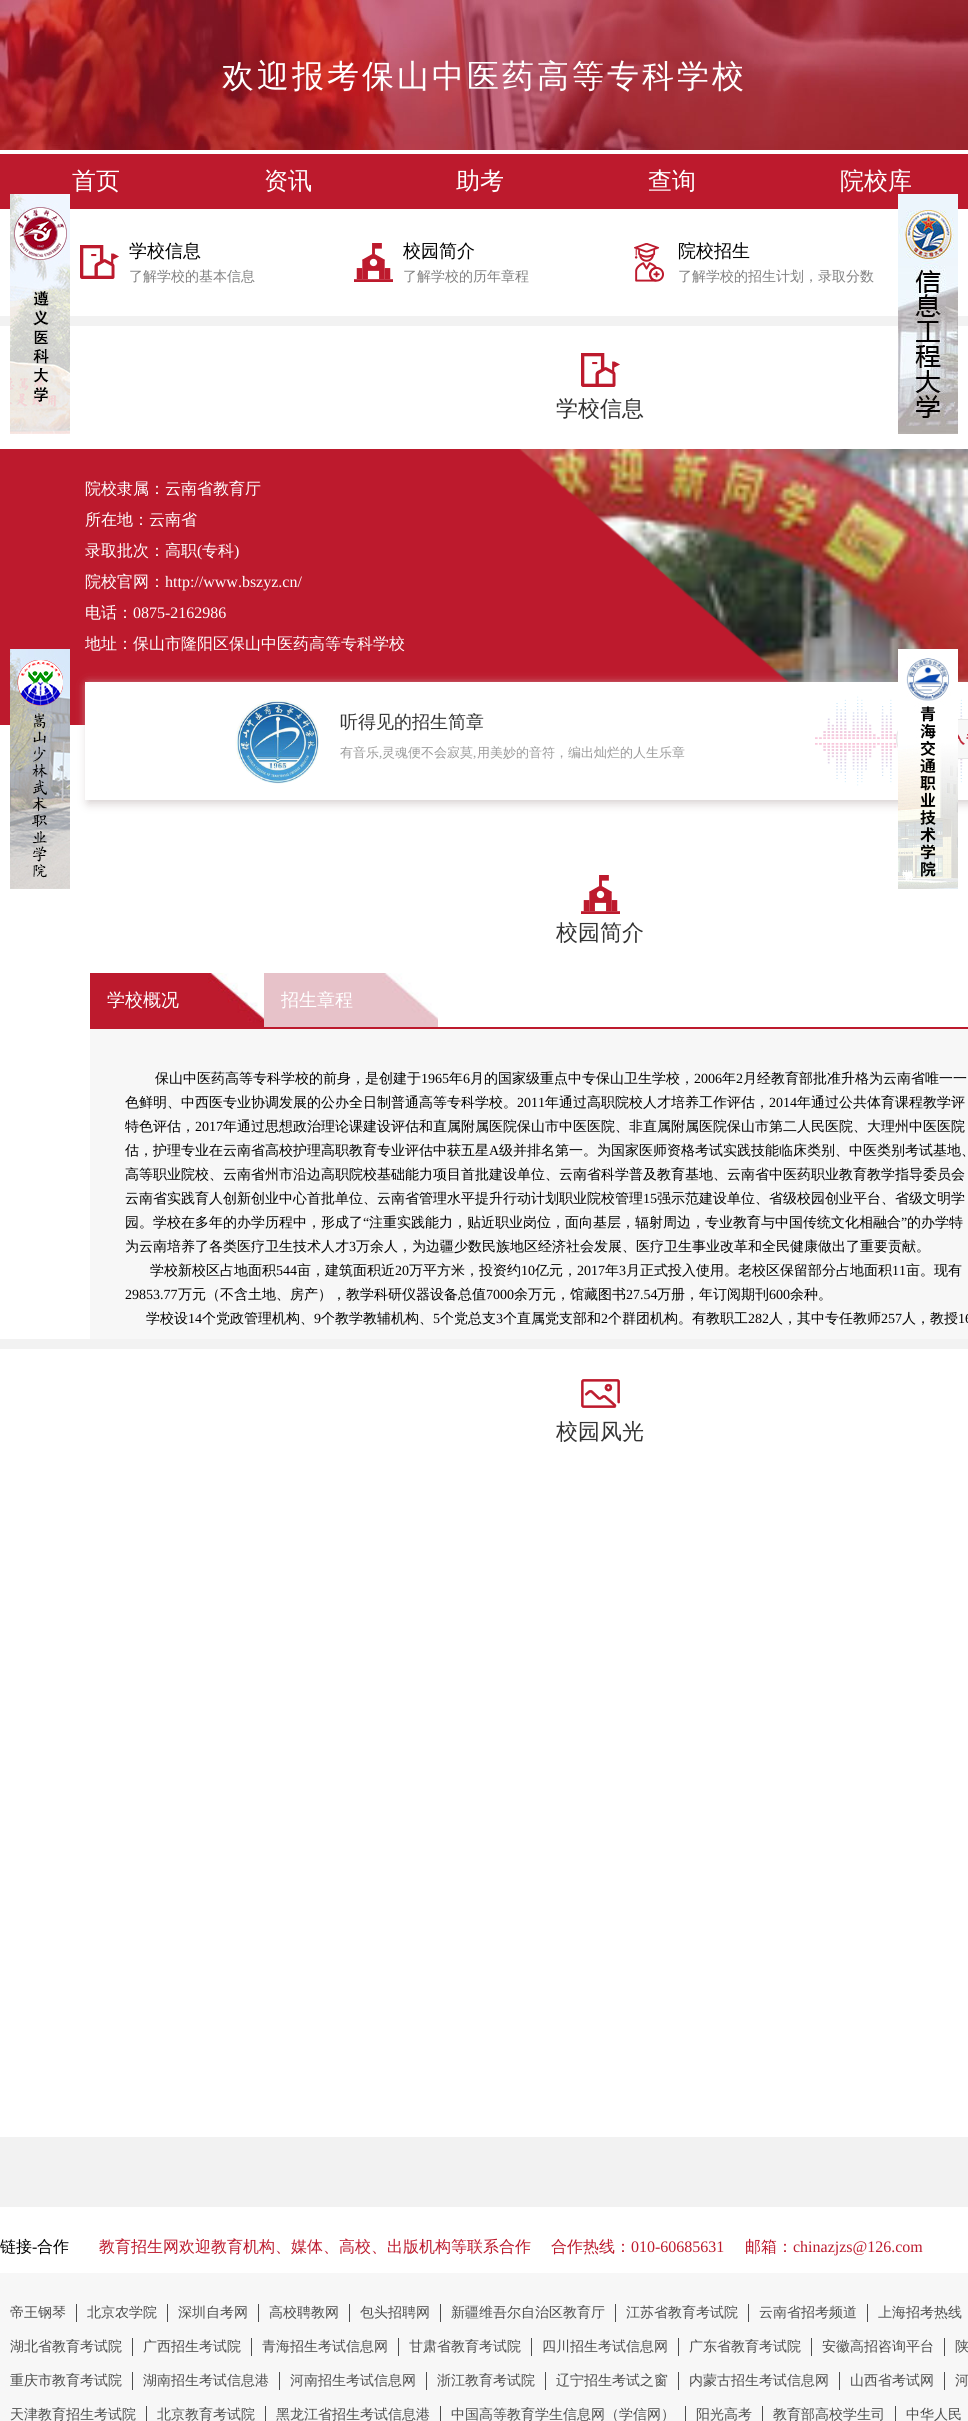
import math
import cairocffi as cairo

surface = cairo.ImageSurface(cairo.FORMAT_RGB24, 968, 2421)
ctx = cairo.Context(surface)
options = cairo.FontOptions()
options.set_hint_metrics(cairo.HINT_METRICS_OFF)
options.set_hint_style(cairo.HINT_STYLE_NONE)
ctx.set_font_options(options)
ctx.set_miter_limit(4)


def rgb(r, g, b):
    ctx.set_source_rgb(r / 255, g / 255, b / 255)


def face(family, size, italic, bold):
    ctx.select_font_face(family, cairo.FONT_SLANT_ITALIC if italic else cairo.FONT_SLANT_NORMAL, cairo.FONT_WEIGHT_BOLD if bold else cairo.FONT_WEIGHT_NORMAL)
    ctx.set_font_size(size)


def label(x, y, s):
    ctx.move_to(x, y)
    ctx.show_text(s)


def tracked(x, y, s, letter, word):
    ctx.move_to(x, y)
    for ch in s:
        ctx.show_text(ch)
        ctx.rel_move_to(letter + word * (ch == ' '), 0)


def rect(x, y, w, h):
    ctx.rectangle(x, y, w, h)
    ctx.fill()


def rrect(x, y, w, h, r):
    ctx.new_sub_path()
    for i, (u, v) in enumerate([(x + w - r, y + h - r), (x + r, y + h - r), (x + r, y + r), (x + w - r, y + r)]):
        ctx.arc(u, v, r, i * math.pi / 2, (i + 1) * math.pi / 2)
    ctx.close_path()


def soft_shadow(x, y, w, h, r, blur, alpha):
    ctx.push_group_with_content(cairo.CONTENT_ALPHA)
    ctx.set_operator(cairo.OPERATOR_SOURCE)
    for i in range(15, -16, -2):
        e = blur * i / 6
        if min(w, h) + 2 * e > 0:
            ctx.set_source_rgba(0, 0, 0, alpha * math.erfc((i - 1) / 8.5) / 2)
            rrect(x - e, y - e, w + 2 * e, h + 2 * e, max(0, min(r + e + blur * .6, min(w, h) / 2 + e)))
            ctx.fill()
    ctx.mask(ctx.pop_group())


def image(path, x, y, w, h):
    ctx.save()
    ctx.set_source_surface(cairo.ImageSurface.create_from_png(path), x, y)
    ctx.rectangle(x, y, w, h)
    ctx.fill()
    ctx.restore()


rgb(255, 255, 255)
ctx.paint()
image('image0.png', 0, 0, 968, 150)
face('WenQuanYi Zen Hei Medium', 32, 0, 0)
rgb(255, 255, 255)
tracked(222, 87, '欢迎报考保山中医药高等专科学校', 3, 0)
rgb(189, 26, 45)
rect(0, 154, 968, 55)
face('WenQuanYi Zen Hei Medium', 24, 0, 0)
rgb(255, 255, 255)
label(72, 189, '首页')
label(264, 189, '资讯')
label(456, 189, '助考')
label(648, 189, '查询')
label(840, 189, '院校库')
rgb(242, 242, 242)
rect(0, 316, 968, 1891)
rgb(255, 255, 255)
rect(0, 326, 968, 1013)
image('image1.png', 10, 194, 60, 240)
image('image8.png', 518, 449, 450, 233)
image('image9.png', 0, 449, 790, 276)
image('image2.png', 10, 649, 60, 240)
image('image3.png', 898, 194, 60, 240)
rgb(212, 205, 205)
soft_shadow(88, 685, 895, 118, 0, 5, 1)
rgb(255, 255, 255)
rect(85, 682, 883, 118)
image('image11.png', 815, 696, 148, 90)
image('image12.png', 896, 719, 72, 40)
image('image4.png', 898, 649, 60, 240)
image('image5.png', 80, 245, 39, 34)
face('WenQuanYi Zen Hei Medium', 18, 0, 0)
rgb(0, 0, 0)
label(129, 257, '学校信息')
face('WenQuanYi Zen Hei Medium', 14, 0, 0)
rgb(128, 128, 128)
label(129, 281, '了解学校的基本信息')
image('image6.png', 354, 243, 39, 39)
face('WenQuanYi Zen Hei Medium', 18, 0, 0)
rgb(0, 0, 0)
label(403, 257, '校园简介')
face('WenQuanYi Zen Hei Medium', 14, 0, 0)
rgb(128, 128, 128)
label(403, 281, '了解学校的历年章程')
image('image7.png', 634, 243, 30, 39)
face('WenQuanYi Zen Hei Medium', 18, 0, 0)
rgb(0, 0, 0)
label(678, 257, '院校招生')
face('WenQuanYi Zen Hei Medium', 14, 0, 0)
rgb(128, 128, 128)
label(678, 281, '了解学校的招生计划，录取分数')
image('image5.png', 581, 353, 39, 34)
face('WenQuanYi Zen Hei Medium', 22, 0, 0)
rgb(51, 51, 51)
label(556, 416, '学校信息')
face('WenQuanYi Zen Hei Medium', 16, 0, 0)
rgb(255, 255, 255)
label(85, 494, '院校隶属：云南省教育厅')
label(85, 525, '所在地：云南省')
label(85, 556, '录取批次：高职')
face('Liberation Serif', 16, 0, 0)
label(197, 556, '(')
face('WenQuanYi Zen Hei Medium', 16, 0, 0)
label(202, 556, '专科')
face('Liberation Serif', 16, 0, 0)
label(234, 556, ')')
face('WenQuanYi Zen Hei Medium', 16, 0, 0)
label(85, 587, '院校官网：')
face('Liberation Serif', 16, 0, 0)
label(165, 587, 'http://www.bszyz.cn/')
face('WenQuanYi Zen Hei Medium', 16, 0, 0)
label(85, 618, '电话：')
face('Liberation Serif', 16, 0, 0)
label(133, 618, '0875-2162986')
face('WenQuanYi Zen Hei Medium', 16, 0, 0)
label(85, 649, '地址：保山市隆阳区保山中医药高等专科学校')
image('image10.png', 235, 700, 84, 84)
face('WenQuanYi Zen Hei Medium', 18, 0, 0)
rgb(51, 51, 51)
label(340, 728, '听得见的招生简章')
face('WenQuanYi Zen Hei Medium', 13, 0, 0)
rgb(153, 153, 153)
label(340, 757, '有音乐')
face('Liberation Serif', 13, 0, 0)
label(379, 757, ',')
face('WenQuanYi Zen Hei Medium', 13, 0, 0)
label(382, 757, '灵魂便不会寂莫')
face('Liberation Serif', 13, 0, 0)
label(473, 757, ',')
face('WenQuanYi Zen Hei Medium', 13, 0, 0)
label(477, 757, '用美妙的音符，编出灿烂的人生乐章')
image('image6.png', 581, 875, 39, 39)
face('WenQuanYi Zen Hei Medium', 22, 0, 0)
rgb(51, 51, 51)
label(556, 940, '校园简介')
rgb(189, 26, 45)
rect(90, 1027, 878, 2)
image('image13.png', 90, 973, 174, 54)
face('WenQuanYi Zen Hei Medium', 18, 0, 0)
rgb(255, 255, 255)
label(107, 1006, '学校概况')
image('image14.png', 264, 973, 174, 54)
label(281, 1006, '招生章程')
rgb(247, 247, 247)
rect(90, 1029, 878, 310)
face('WenQuanYi Zen Hei Medium', 14, 0, 0)
rgb(0, 0, 0)
label(155, 1083, '保山中医药高等专科学校的前身，是创建于')
face('Liberation Serif', 14, 0, 0)
label(421, 1083, '1965')
face('WenQuanYi Zen Hei Medium', 14, 0, 0)
label(449, 1083, '年')
face('Liberation Serif', 14, 0, 0)
label(463, 1083, '6')
face('WenQuanYi Zen Hei Medium', 14, 0, 0)
label(470, 1083, '月的国家级重点中专保山卫生学校，')
face('Liberation Serif', 14, 0, 0)
label(694, 1083, '2006')
face('WenQuanYi Zen Hei Medium', 14, 0, 0)
label(722, 1083, '年')
face('Liberation Serif', 14, 0, 0)
label(736, 1083, '2')
face('WenQuanYi Zen Hei Medium', 14, 0, 0)
label(743, 1083, '月经教育部批准升格为云南省唯一一')
label(125, 1107, '色鲜明、中西医专业协调发展的公办全日制普通高等专科学校。')
face('Liberation Serif', 14, 0, 0)
label(517, 1107, '2011')
face('WenQuanYi Zen Hei Medium', 14, 0, 0)
label(545, 1107, '年通过高职院校人才培养工作评估，')
face('Liberation Serif', 14, 0, 0)
label(769, 1107, '2014')
face('WenQuanYi Zen Hei Medium', 14, 0, 0)
label(797, 1107, '年通过公共体育课程教学评')
label(125, 1131, '特色评估，')
face('Liberation Serif', 14, 0, 0)
label(195, 1131, '2017')
face('WenQuanYi Zen Hei Medium', 14, 0, 0)
label(223, 1131, '年通过思想政治理论课建设评估和直属附属医院保山市中医医院、非直属附属医院保山市第二人民医院、大理州中医医院')
label(125, 1155, '估，护理专业在云南省高校护理高职教育专业评估中获五星')
face('Liberation Serif', 14, 0, 0)
label(489, 1155, 'A')
face('WenQuanYi Zen Hei Medium', 14, 0, 0)
label(499, 1155, '级并排名第一。为国家医师资格考试实践技能临床类别、中医类别考试基地、')
label(125, 1179, '高等职业院校、云南省州市沿边高职院校基础能力项目首批建设单位、云南省科学普及教育基地、云南省中医药职业教育教学指导委员会')
label(125, 1203, '云南省实践育人创新创业中心首批单位、云南省管理水平提升行动计划职业院校管理')
face('Liberation Serif', 14, 0, 0)
label(643, 1203, '15')
face('WenQuanYi Zen Hei Medium', 14, 0, 0)
label(657, 1203, '强示范建设单位、省级校园创业平台、省级文明学')
label(125, 1227, '园。学校在多年的办学历程中，形成了')
face('Liberation Serif', 14, 0, 0)
label(363, 1227, '“')
face('WenQuanYi Zen Hei Medium', 14, 0, 0)
label(369, 1227, '注重实践能力，贴近职业岗位，面向基层，辐射周边，专业教育与中国传统文化相融合')
face('Liberation Serif', 14, 0, 0)
label(901, 1227, '”')
face('WenQuanYi Zen Hei Medium', 14, 0, 0)
label(907, 1227, '的办学特')
label(125, 1251, '为云南培养了各类医疗卫生技术人才')
face('Liberation Serif', 14, 0, 0)
label(349, 1251, '3')
face('WenQuanYi Zen Hei Medium', 14, 0, 0)
label(356, 1251, '万余人，为边疆少数民族地区经济社会发展、医疗卫生事业改革和全民健康做出了重要贡献。')
label(150, 1275, '学校新校区占地面积')
face('Liberation Serif', 14, 0, 0)
label(276, 1275, '544')
face('WenQuanYi Zen Hei Medium', 14, 0, 0)
label(297, 1275, '亩，建筑面积近')
face('Liberation Serif', 14, 0, 0)
label(395, 1275, '20')
face('WenQuanYi Zen Hei Medium', 14, 0, 0)
label(409, 1275, '万平方米，投资约')
face('Liberation Serif', 14, 0, 0)
label(521, 1275, '10')
face('WenQuanYi Zen Hei Medium', 14, 0, 0)
label(535, 1275, '亿元，')
face('Liberation Serif', 14, 0, 0)
label(577, 1275, '2017')
face('WenQuanYi Zen Hei Medium', 14, 0, 0)
label(605, 1275, '年')
face('Liberation Serif', 14, 0, 0)
label(619, 1275, '3')
face('WenQuanYi Zen Hei Medium', 14, 0, 0)
label(626, 1275, '月正式投入使用。老校区保留部分占地面积')
face('Liberation Serif', 14, 0, 0)
label(892, 1275, '11')
face('WenQuanYi Zen Hei Medium', 14, 0, 0)
label(906, 1275, '亩。现有')
face('Liberation Serif', 14, 0, 0)
label(125, 1299, '29853.77')
face('WenQuanYi Zen Hei Medium', 14, 0, 0)
label(178, 1299, '万元（不含土地、房产），教学科研仪器设备总值')
face('Liberation Serif', 14, 0, 0)
label(486, 1299, '7000')
face('WenQuanYi Zen Hei Medium', 14, 0, 0)
label(514, 1299, '余万元，馆藏图书')
face('Liberation Serif', 14, 0, 0)
label(626, 1299, '27.54')
face('WenQuanYi Zen Hei Medium', 14, 0, 0)
label(657, 1299, '万册，年订阅期刊')
face('Liberation Serif', 14, 0, 0)
label(769, 1299, '600')
face('WenQuanYi Zen Hei Medium', 14, 0, 0)
label(790, 1299, '余种。')
label(146, 1323, '学校设')
face('Liberation Serif', 14, 0, 0)
label(188, 1323, '14')
face('WenQuanYi Zen Hei Medium', 14, 0, 0)
label(202, 1323, '个党政管理机构、')
face('Liberation Serif', 14, 0, 0)
label(314, 1323, '9')
face('WenQuanYi Zen Hei Medium', 14, 0, 0)
label(321, 1323, '个教学教辅机构、')
face('Liberation Serif', 14, 0, 0)
label(433, 1323, '5')
face('WenQuanYi Zen Hei Medium', 14, 0, 0)
label(440, 1323, '个党总支')
face('Liberation Serif', 14, 0, 0)
label(496, 1323, '3')
face('WenQuanYi Zen Hei Medium', 14, 0, 0)
label(503, 1323, '个直属党支部和')
face('Liberation Serif', 14, 0, 0)
label(601, 1323, '2')
face('WenQuanYi Zen Hei Medium', 14, 0, 0)
label(608, 1323, '个群团机构。有教职工')
face('Liberation Serif', 14, 0, 0)
label(748, 1323, '282')
face('WenQuanYi Zen Hei Medium', 14, 0, 0)
label(769, 1323, '人，其中专任教师')
face('Liberation Serif', 14, 0, 0)
label(881, 1323, '257')
face('WenQuanYi Zen Hei Medium', 14, 0, 0)
label(902, 1323, '人，教授')
face('Liberation Serif', 14, 0, 0)
label(958, 1323, '16')
rgb(255, 255, 255)
rect(0, 1349, 968, 788)
image('image15.png', 581, 1379, 39, 29)
face('WenQuanYi Zen Hei Medium', 22, 0, 0)
rgb(51, 51, 51)
label(556, 1439, '校园风光')
face('WenQuanYi Zen Hei Medium', 16, 0, 0)
rgb(0, 0, 0)
label(0, 2252, '链接')
face('Liberation Serif', 16, 0, 0)
label(32, 2252, '-')
face('WenQuanYi Zen Hei Medium', 16, 0, 0)
label(37, 2252, '合作')
rgb(189, 26, 45)
label(99, 2252, '教育招生网欢迎教育机构、媒体、高校、出版机构等联系合作')
label(551, 2252, '合作热线：')
face('Liberation Serif', 16, 0, 0)
label(631, 2252, '010-60685631')
face('WenQuanYi Zen Hei Medium', 16, 0, 0)
label(745, 2252, '邮箱：')
face('Liberation Serif', 16, 0, 0)
label(793, 2252, 'chinazjzs@126.com')
rgb(247, 247, 247)
rect(0, 2273, 968, 148)
rgb(77, 77, 77)
rect(76, 2304, 1, 18)
face('WenQuanYi Zen Hei Medium', 14, 0, 0)
label(10, 2317, '帝王钢琴')
rect(167, 2304, 1, 18)
label(87, 2317, '北京农学院')
rect(258, 2304, 1, 18)
label(178, 2317, '深圳自考网')
rect(349, 2304, 1, 18)
label(269, 2317, '高校聘教网')
rect(440, 2304, 1, 18)
label(360, 2317, '包头招聘网')
rect(615, 2304, 1, 18)
label(451, 2317, '新疆维吾尔自治区教育厅')
rect(748, 2304, 1, 18)
label(626, 2317, '江苏省教育考试院')
rect(867, 2304, 1, 18)
label(759, 2317, '云南省招考频道')
label(878, 2317, '上海招考热线')
rect(132, 2338, 1, 18)
label(10, 2351, '湖北省教育考试院')
rect(251, 2338, 1, 18)
label(143, 2351, '广西招生考试院')
rect(398, 2338, 1, 18)
label(262, 2351, '青海招生考试信息网')
rect(531, 2338, 1, 18)
label(409, 2351, '甘肃省教育考试院')
rect(678, 2338, 1, 18)
label(542, 2351, '四川招生考试信息网')
rect(811, 2338, 1, 18)
label(689, 2351, '广东省教育考试院')
rect(944, 2338, 1, 18)
label(822, 2351, '安徽高招咨询平台')
label(955, 2351, '陕')
rect(132, 2372, 1, 18)
label(10, 2385, '重庆市教育考试院')
rect(279, 2372, 1, 18)
label(143, 2385, '湖南招生考试信息港')
rect(426, 2372, 1, 18)
label(290, 2385, '河南招生考试信息网')
rect(545, 2372, 1, 18)
label(437, 2385, '浙江教育考试院')
rect(678, 2372, 1, 18)
label(556, 2385, '辽宁招生考试之窗')
rect(839, 2372, 1, 18)
label(689, 2385, '内蒙古招生考试信息网')
rect(944, 2372, 1, 18)
label(850, 2385, '山西省考试网')
label(955, 2385, '河')
rect(146, 2406, 1, 15)
label(10, 2419, '天津教育招生考试院')
rect(265, 2406, 1, 15)
label(157, 2419, '北京教育考试院')
rect(440, 2406, 1, 15)
label(276, 2419, '黑龙江省招生考试信息港')
rect(685, 2406, 1, 15)
label(451, 2419, '中国高等教育学生信息网（学信网）')
rect(762, 2406, 1, 15)
label(696, 2419, '阳光高考')
rect(895, 2406, 1, 15)
label(773, 2419, '教育部高校学生司')
label(906, 2419, '中华人民')
surface.write_to_png('render.png')
